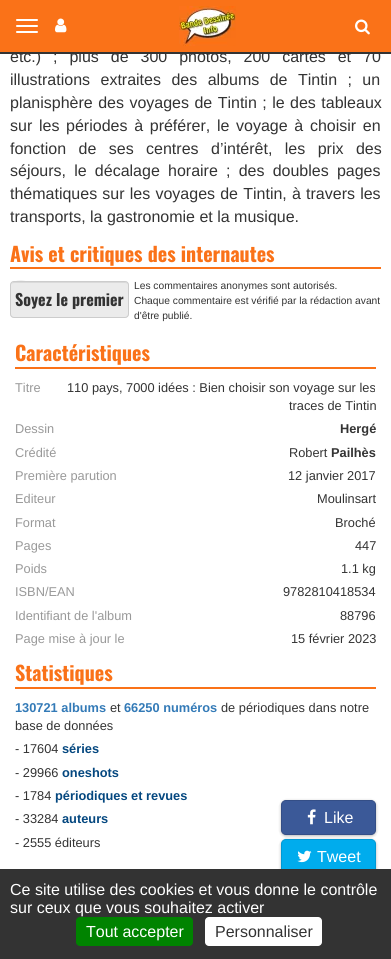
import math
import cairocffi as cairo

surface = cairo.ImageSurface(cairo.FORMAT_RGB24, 391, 959)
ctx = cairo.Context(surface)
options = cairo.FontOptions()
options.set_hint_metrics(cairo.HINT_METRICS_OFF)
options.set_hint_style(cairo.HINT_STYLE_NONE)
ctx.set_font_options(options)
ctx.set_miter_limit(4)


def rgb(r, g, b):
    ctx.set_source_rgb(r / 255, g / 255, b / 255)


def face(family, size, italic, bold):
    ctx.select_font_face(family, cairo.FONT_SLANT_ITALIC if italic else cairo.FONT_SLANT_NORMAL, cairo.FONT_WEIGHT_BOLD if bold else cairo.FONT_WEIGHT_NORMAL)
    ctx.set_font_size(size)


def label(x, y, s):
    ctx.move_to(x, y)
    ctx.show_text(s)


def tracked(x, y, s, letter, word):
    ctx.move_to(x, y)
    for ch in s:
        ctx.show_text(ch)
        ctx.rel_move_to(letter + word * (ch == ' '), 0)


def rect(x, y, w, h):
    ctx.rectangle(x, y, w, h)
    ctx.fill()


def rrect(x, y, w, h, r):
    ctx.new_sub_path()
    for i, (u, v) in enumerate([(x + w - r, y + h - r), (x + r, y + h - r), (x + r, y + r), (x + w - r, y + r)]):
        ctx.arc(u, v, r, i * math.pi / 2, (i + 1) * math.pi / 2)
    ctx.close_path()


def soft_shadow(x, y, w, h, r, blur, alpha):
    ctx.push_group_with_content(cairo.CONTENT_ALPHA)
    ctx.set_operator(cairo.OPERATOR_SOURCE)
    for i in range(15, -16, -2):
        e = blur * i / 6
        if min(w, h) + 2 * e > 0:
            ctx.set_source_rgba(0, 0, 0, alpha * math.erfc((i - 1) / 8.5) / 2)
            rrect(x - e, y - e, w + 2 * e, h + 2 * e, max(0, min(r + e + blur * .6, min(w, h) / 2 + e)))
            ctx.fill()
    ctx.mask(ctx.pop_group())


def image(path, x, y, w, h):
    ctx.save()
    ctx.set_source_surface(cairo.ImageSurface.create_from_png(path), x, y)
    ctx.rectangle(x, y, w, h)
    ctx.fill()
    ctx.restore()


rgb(255, 255, 255)
ctx.paint()
face('Liberation Sans', 16, 0, 0)
rgb(51, 51, 51)
tracked(10, 62, 'etc.) ; plus de 300 photos, 200 cartes et 70', 0, 7.5)
rgb(250, 114, 24)
rect(0, 0, 391, 52)
rgb(51, 51, 51)
rect(0, 52, 391, 2)
rgb(255, 255, 255)
rrect(16, 19, 22, 2, 1)
ctx.fill()
rrect(16, 25, 22, 2, 1)
ctx.fill()
rrect(16, 31, 22, 2, 1)
ctx.fill()
image('image0.png', 55, 18, 12, 15)
image('image1.png', 179, 6, 57, 40)
image('image2.png', 355, 19, 15, 16)
rgb(51, 51, 51)
tracked(10, 85, 'illustrations extraites des albums de Tintin ; un', 0, 6)
tracked(10, 108, 'planisphère des voyages de Tintin ; le des tableaux', 0, 1)
tracked(10, 131, 'sur les périodes à préférer, le voyage à choisir en', 0, 2.25)
tracked(10, 154, 'fonction de ses centres d’intérêt, les prix des', 0, 8)
tracked(10, 176, 'séjours, le décalage horaire ; des doubles pages', 0, 3.75)
tracked(10, 199, 'thématiques sur les voyages de Tintin, à travers les', 0, 0.75)
label(10, 222, 'transports, la gastronomie et la musique.')
rgb(250, 114, 24)
rect(10, 267, 371, 2)
face('Oswald', 20, 0, 1)
label(10, 262, 'Avis et critiques des internautes')
rgb(235, 235, 235)
rrect(10, 281, 119, 37, 4)
ctx.fill()
rgb(217, 217, 217)
ctx.new_path()
ctx.move_to(14, 283)
ctx.line_to(125, 283)
ctx.curve_to(127, 283, 128, 284, 128, 286)
ctx.curve_to(128, 284, 127, 282, 125, 282)
ctx.line_to(32, 282)
ctx.curve_to(31, 282, 11, 277, 11, 286)
ctx.curve_to(11, 284, 12, 283, 14, 283)
ctx.close_path()
ctx.fill()
rrect(10.5, 281.5, 118, 36, 3.5)
rgb(204, 204, 204)
ctx.set_line_width(1)
ctx.stroke()
face('Oswald', 16, 0, 1)
rgb(51, 51, 51)
label(15, 306, 'Soyez le premier')
face('Liberation Sans', 10.25, 0, 0)
label(134, 289, 'Les commentaires anonymes sont autorisés.')
label(134, 304, 'Chaque commentaire est vérifié par la rédaction avant')
label(134, 319, 'd\'être publié.')
rgb(250, 114, 24)
rect(15, 367, 361, 2)
face('Oswald', 20, 0, 1)
label(15, 361, 'Caractéristiques')
face('Liberation Sans', 12.8, 0, 0)
rgb(153, 153, 153)
label(15, 392, 'Titre')
rgb(51, 51, 51)
label(67, 392, '110 pays, 7000 idées : Bien choisir son voyage sur les')
label(289, 410, 'traces de Tintin')
rgb(153, 153, 153)
label(15, 433, 'Dessin')
face('Liberation Sans', 12.8, 0, 1)
rgb(51, 51, 51)
label(340, 433, 'Hergé')
face('Liberation Sans', 12.8, 0, 0)
rgb(153, 153, 153)
label(15, 457, 'Crédité')
rgb(51, 51, 51)
label(289, 457, 'Robert')
face('Liberation Sans', 12.8, 0, 1)
label(331, 457, 'Pailhès')
face('Liberation Sans', 12.8, 0, 0)
rgb(153, 153, 153)
label(15, 480, 'Première parution')
rgb(51, 51, 51)
label(288, 480, '12 janvier 2017')
rgb(153, 153, 153)
label(15, 503, 'Editeur')
rgb(51, 51, 51)
label(317, 503, 'Moulinsart')
rgb(153, 153, 153)
label(15, 527, 'Format')
rgb(51, 51, 51)
label(335, 527, 'Broché')
rgb(153, 153, 153)
label(15, 550, 'Pages')
rgb(51, 51, 51)
label(355, 550, '447')
rgb(153, 153, 153)
label(15, 573, 'Poids')
rgb(51, 51, 51)
label(341, 573, '1.1 kg')
rgb(153, 153, 153)
label(15, 596, 'ISBN/EAN')
rgb(51, 51, 51)
label(283, 596, '9782810418534')
rgb(153, 153, 153)
label(15, 620, 'Identifiant de l\'album')
rgb(51, 51, 51)
label(340, 620, '88796')
rgb(153, 153, 153)
label(15, 643, 'Page mise à jour le')
rgb(51, 51, 51)
label(291, 643, '15 février 2023')
rgb(250, 114, 24)
rect(15, 687, 361, 2)
face('Oswald', 20, 0, 1)
label(15, 681, 'Statistiques')
face('Liberation Sans', 12.8, 0, 1)
rgb(51, 122, 183)
label(15, 712, '130721 albums')
face('Liberation Sans', 12.8, 0, 0)
rgb(51, 51, 51)
label(110, 712, 'et')
face('Liberation Sans', 12.8, 0, 1)
rgb(51, 122, 183)
label(124, 712, '66250 numéros')
face('Liberation Sans', 12.8, 0, 0)
rgb(51, 51, 51)
label(221, 712, 'de périodiques dans notre')
label(15, 730, 'base de données')
label(15, 753, '- 17604')
face('Liberation Sans', 12.8, 0, 1)
rgb(4, 71, 127)
label(62, 753, 'séries')
face('Liberation Sans', 12.8, 0, 0)
rgb(51, 51, 51)
label(15, 777, '- 29966')
face('Liberation Sans', 12.8, 0, 1)
rgb(4, 71, 127)
label(62, 777, 'oneshots')
face('Liberation Sans', 12.8, 0, 0)
rgb(51, 51, 51)
label(15, 800, '- 1784')
face('Liberation Sans', 12.8, 0, 1)
rgb(4, 71, 127)
label(55, 800, 'périodiques et revues')
face('Liberation Sans', 12.8, 0, 0)
rgb(51, 51, 51)
label(15, 823, '- 33284')
face('Liberation Sans', 12.8, 0, 1)
rgb(4, 71, 127)
label(62, 823, 'auteurs')
face('Liberation Sans', 12.8, 0, 0)
rgb(51, 51, 51)
label(15, 847, '- 2555 éditeurs')
rgb(0, 0, 0)
soft_shadow(281, 801, 95, 35, 5, 1.5, 0.15)
soft_shadow(281, 801, 95, 35, 5, 1.5, 0.15)
rgb(59, 89, 152)
rrect(281.5, 800.5, 94, 34, 4.5)
ctx.fill_preserve()
rgb(52, 78, 134)
ctx.stroke()
image('image3.png', 307, 809, 9, 16)
face('Liberation Sans', 16, 0, 0)
rgb(255, 255, 255)
label(324, 823, 'Like')
rgb(0, 0, 0)
soft_shadow(281, 840, 95, 35, 5, 1.5, 0.15)
soft_shadow(281, 840, 95, 35, 5, 1.5, 0.15)
rgb(0, 172, 237)
rrect(281.5, 839.5, 94, 34, 4.5)
ctx.fill_preserve()
rgb(0, 153, 212)
ctx.stroke()
image('image4.png', 297, 850, 15, 13)
rgb(255, 255, 255)
label(317, 862, 'Tweet')
rgb(51, 51, 51)
rect(0, 869, 391, 90)
rgb(255, 255, 255)
label(10, 895, 'Ce site utilise des cookies et vous donne le contrôle')
label(10, 913, 'sur ceux que vous souhaitez activer')
rgb(0, 131, 0)
rrect(76, 917, 117, 29, 4)
ctx.fill()
rgb(255, 255, 255)
label(86, 937, 'Tout accepter')
rrect(205, 917, 117, 29, 4)
ctx.fill()
rgb(51, 51, 51)
label(215, 937, 'Personnaliser')
surface.write_to_png('render.png')
